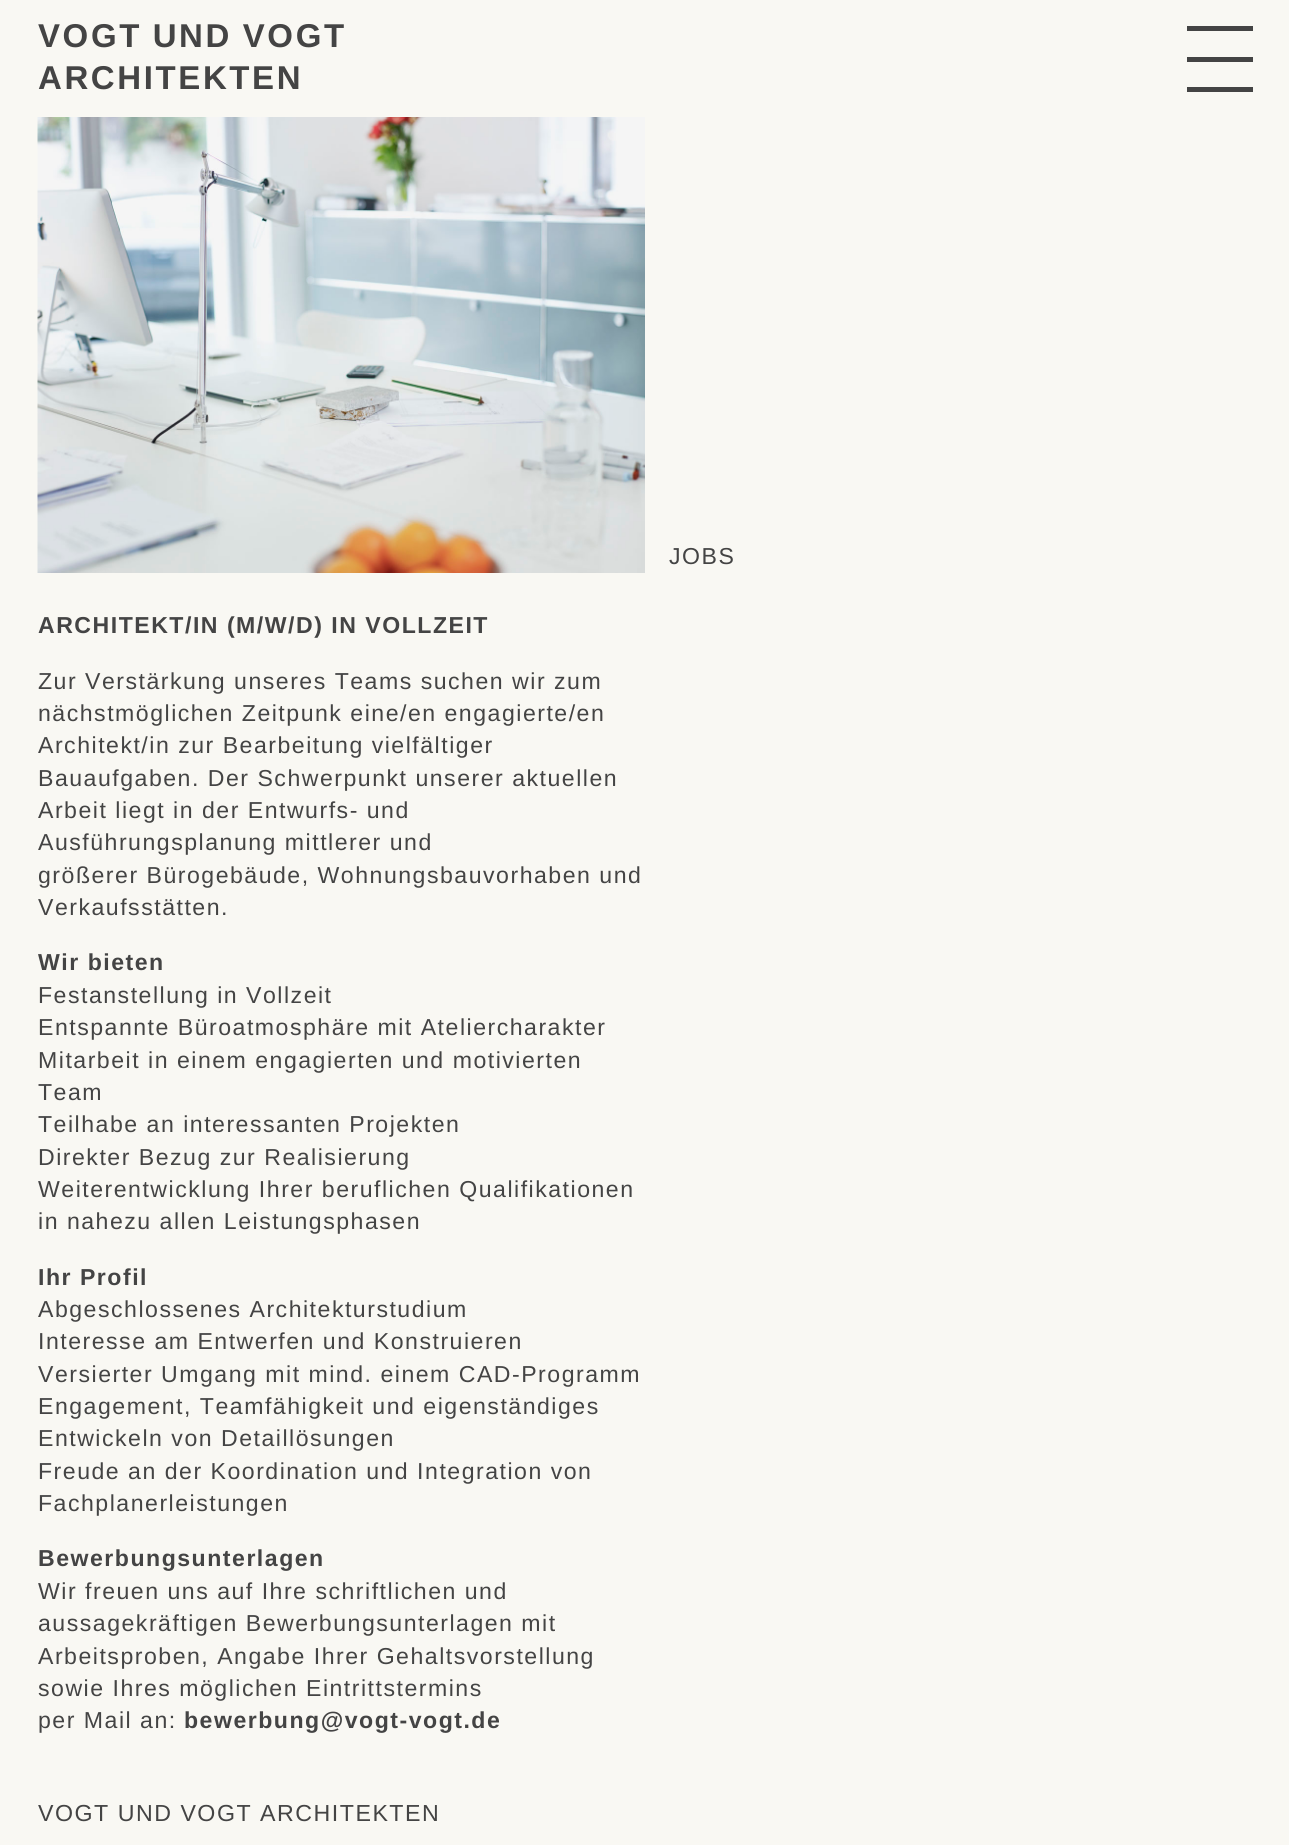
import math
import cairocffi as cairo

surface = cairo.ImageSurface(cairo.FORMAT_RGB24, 1289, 1845)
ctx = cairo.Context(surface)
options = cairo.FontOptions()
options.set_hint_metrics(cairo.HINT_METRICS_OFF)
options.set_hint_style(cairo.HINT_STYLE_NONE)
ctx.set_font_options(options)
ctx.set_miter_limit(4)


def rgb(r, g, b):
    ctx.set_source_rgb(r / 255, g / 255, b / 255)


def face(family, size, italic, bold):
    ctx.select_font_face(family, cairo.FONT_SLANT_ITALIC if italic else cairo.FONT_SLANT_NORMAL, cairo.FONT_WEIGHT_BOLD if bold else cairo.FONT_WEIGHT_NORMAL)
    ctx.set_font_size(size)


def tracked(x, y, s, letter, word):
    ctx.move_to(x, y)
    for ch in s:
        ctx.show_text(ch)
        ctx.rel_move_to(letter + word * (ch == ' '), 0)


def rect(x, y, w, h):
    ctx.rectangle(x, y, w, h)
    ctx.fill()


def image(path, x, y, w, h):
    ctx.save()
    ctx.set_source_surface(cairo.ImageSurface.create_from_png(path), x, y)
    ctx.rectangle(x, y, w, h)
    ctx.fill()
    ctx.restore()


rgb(249, 248, 243)
ctx.paint()
face('Liberation Sans', 33, 0, 1)
rgb(68, 68, 68)
tracked(38, 47, 'VOGT UND VOGT', 2.6, -1)
tracked(38, 89, 'ARCHITEKTEN', 2.6, 0)
image('image0.png', 37, 117, 608, 456)
face('Liberation Sans', 23.1, 0, 0)
tracked(669, 564, 'JOBS', 1.5, 0)
face('Liberation Sans', 23.1, 0, 1)
tracked(38, 633, 'ARCHITEKT/IN (M/W/D) IN VOLLZEIT', 1.5, 0)
face('Liberation Sans', 23.1, 0, 0)
tracked(38, 689, 'Zur Verstärkung unseres Teams suchen wir zum', 1.5, 0)
tracked(38, 721, 'nächstmöglichen Zeitpunk eine/en engagierte/en', 1.5, 0)
tracked(38, 753, 'Architekt/in zur Bearbeitung vielfältiger', 1.5, 0)
tracked(38, 786, 'Bauaufgaben. Der Schwerpunkt unserer aktuellen', 1.5, 0)
tracked(38, 818, 'Arbeit liegt in der Entwurfs- und', 1.5, 0)
tracked(38, 850, 'Ausführungsplanung mittlerer und', 1.5, 0)
tracked(38, 883, 'größerer Bürogebäude, Wohnungsbauvorhaben und', 1.5, 0)
tracked(38, 915, 'Verkaufsstätten.', 1.5, 0)
face('Liberation Sans', 23.1, 0, 1)
tracked(38, 970, 'Wir bieten', 1.5, 0)
face('Liberation Sans', 23.1, 0, 0)
tracked(38, 1003, 'Festanstellung in Vollzeit', 1.5, 0)
tracked(38, 1035, 'Entspannte Büroatmosphäre mit Ateliercharakter', 1.5, 0)
tracked(38, 1068, 'Mitarbeit in einem engagierten und motivierten', 1.5, 0)
tracked(38, 1100, 'Team', 1.5, 0)
tracked(38, 1132, 'Teilhabe an interessanten Projekten', 1.5, 0)
tracked(38, 1165, 'Direkter Bezug zur Realisierung', 1.5, 0)
tracked(38, 1197, 'Weiterentwicklung Ihrer beruflichen Qualifikationen', 1.5, 0)
tracked(38, 1229, 'in nahezu allen Leistungsphasen', 1.5, 0)
face('Liberation Sans', 23.1, 0, 1)
tracked(38, 1285, 'Ihr Profil', 1.5, 0)
face('Liberation Sans', 23.1, 0, 0)
tracked(38, 1317, 'Abgeschlossenes Architekturstudium', 1.5, 0)
tracked(38, 1349, 'Interesse am Entwerfen und Konstruieren', 1.5, 0)
tracked(38, 1382, 'Versierter Umgang mit mind. einem CAD-Programm', 1.5, 0)
tracked(38, 1414, 'Engagement, Teamfähigkeit und eigenständiges', 1.5, 0)
tracked(38, 1446, 'Entwickeln von Detaillösungen', 1.5, 0)
tracked(38, 1479, 'Freude an der Koordination und Integration von', 1.5, 0)
tracked(38, 1511, 'Fachplanerleistungen', 1.5, 0)
face('Liberation Sans', 23.1, 0, 1)
tracked(38, 1566, 'Bewerbungsunterlagen', 1.5, 0)
face('Liberation Sans', 23.1, 0, 0)
tracked(38, 1599, 'Wir freuen uns auf Ihre schriftlichen und', 1.5, 0)
tracked(38, 1631, 'aussagekräftigen Bewerbungsunterlagen mit', 1.5, 0)
tracked(38, 1664, 'Arbeitsproben, Angabe Ihrer Gehaltsvorstellung', 1.5, 0)
tracked(38, 1696, 'sowie Ihres möglichen Eintrittstermins', 1.5, 0)
tracked(38, 1728, 'per Mail an:', 1.5, 0)
face('Liberation Sans', 23.1, 0, 1)
tracked(184, 1728, 'bewerbung@vogt-vogt.de', 1.5, 0)
rect(1187, 26, 66, 5)
rect(1187, 57, 66, 5)
rect(1187, 87, 66, 5)
face('Liberation Sans', 23.2, 0, 0)
tracked(38, 1821, 'VOGT UND VOGT ARCHITEKTEN', 1.5, 0)
surface.write_to_png('render.png')
